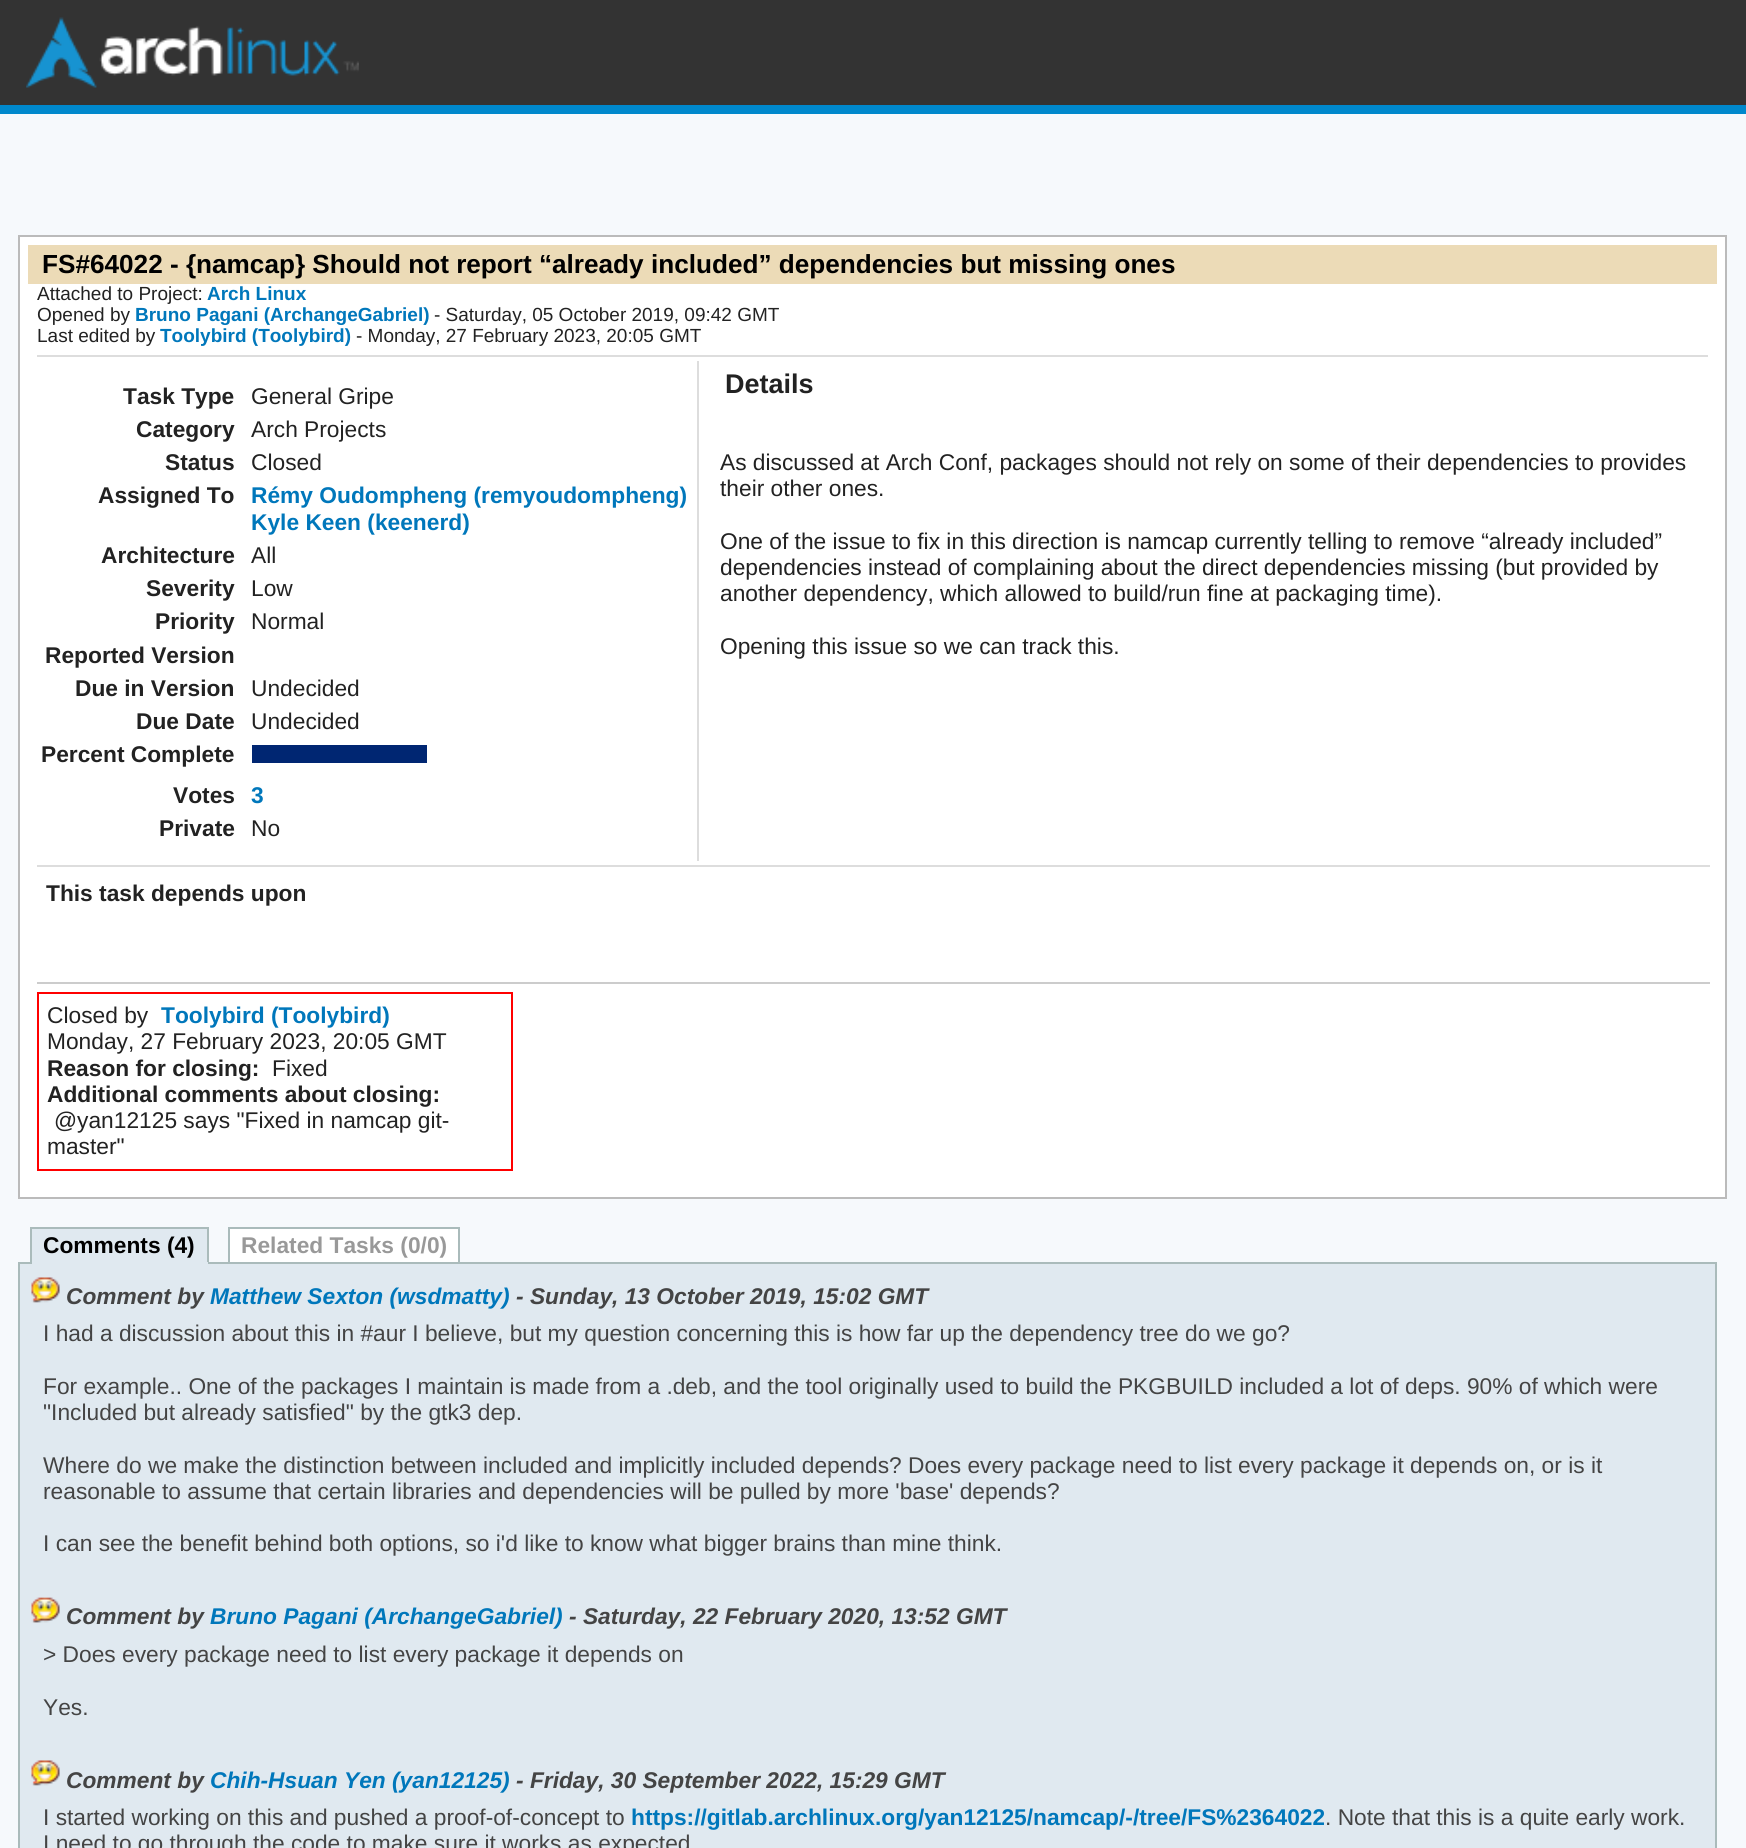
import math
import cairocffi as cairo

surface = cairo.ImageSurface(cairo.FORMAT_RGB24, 1746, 1848)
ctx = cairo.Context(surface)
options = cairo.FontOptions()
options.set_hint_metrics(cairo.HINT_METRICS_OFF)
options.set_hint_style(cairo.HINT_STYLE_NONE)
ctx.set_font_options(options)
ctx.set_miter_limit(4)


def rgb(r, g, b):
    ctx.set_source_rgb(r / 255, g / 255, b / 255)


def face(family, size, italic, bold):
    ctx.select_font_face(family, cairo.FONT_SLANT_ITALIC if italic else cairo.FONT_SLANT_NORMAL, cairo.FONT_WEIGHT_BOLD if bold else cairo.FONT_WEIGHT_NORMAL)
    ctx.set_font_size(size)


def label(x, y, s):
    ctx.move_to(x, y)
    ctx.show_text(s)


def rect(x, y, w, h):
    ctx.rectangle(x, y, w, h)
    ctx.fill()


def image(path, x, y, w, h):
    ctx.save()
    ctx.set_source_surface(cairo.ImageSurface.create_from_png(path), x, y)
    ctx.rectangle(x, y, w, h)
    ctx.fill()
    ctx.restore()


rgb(246, 249, 252)
ctx.paint()
rgb(51, 51, 51)
rect(0, 0, 1746, 105)
rgb(0, 136, 204)
rect(0, 105, 1746, 9)
image('image0.png', 26, 17, 333, 71)
rgb(255, 255, 255)
ctx.rectangle(19, 236, 1707, 962)
ctx.fill_preserve()
rgb(187, 187, 187)
ctx.stroke()
rgb(236, 219, 183)
rect(28, 245, 1689, 39)
face('Liberation Sans', 26.15, 0, 1)
rgb(0, 0, 0)
label(42, 273, 'FS#64022 - {namcap} Should not report “already included” dependencies but missing ones')
rgb(221, 221, 221)
rect(37, 355, 1671, 2)
face('Liberation Sans', 19, 0, 0)
rgb(34, 34, 34)
label(37, 300, 'Attached to Project:')
face('Liberation Sans', 19, 0, 1)
rgb(0, 119, 187)
label(207, 300, 'Arch Linux')
face('Liberation Sans', 19, 0, 0)
rgb(34, 34, 34)
label(37, 321, 'Opened by')
face('Liberation Sans', 19, 0, 1)
rgb(0, 119, 187)
label(135, 321, 'Bruno Pagani (ArchangeGabriel)')
face('Liberation Sans', 19, 0, 0)
rgb(34, 34, 34)
label(434, 321, '- Saturday, 05 October 2019, 09:42 GMT')
label(37, 342, 'Last edited by')
face('Liberation Sans', 19, 0, 1)
rgb(0, 119, 187)
label(160, 342, 'Toolybird (Toolybird)')
face('Liberation Sans', 19, 0, 0)
rgb(34, 34, 34)
label(356, 342, '- Monday, 27 February 2023, 20:05 GMT')
rgb(221, 221, 221)
rect(697, 361, 2, 500)
face('Liberation Sans', 22.75, 0, 1)
rgb(34, 34, 34)
label(123, 404, 'Task Type')
face('Liberation Sans', 22.75, 0, 0)
label(251, 404, 'General Gripe')
face('Liberation Sans', 22.75, 0, 1)
label(136, 437, 'Category')
face('Liberation Sans', 22.75, 0, 0)
label(251, 437, 'Arch Projects')
face('Liberation Sans', 22.75, 0, 1)
label(165, 470, 'Status')
face('Liberation Sans', 22.75, 0, 0)
label(251, 470, 'Closed')
face('Liberation Sans', 22.75, 0, 1)
label(98, 503, 'Assigned To')
rgb(0, 119, 187)
label(251, 503, 'Rémy Oudompheng (remyoudompheng)')
label(251, 530, 'Kyle Keen (keenerd)')
rgb(34, 34, 34)
label(101, 563, 'Architecture')
face('Liberation Sans', 22.75, 0, 0)
label(251, 563, 'All')
face('Liberation Sans', 22.75, 0, 1)
label(146, 596, 'Severity')
face('Liberation Sans', 22.75, 0, 0)
label(251, 596, 'Low')
face('Liberation Sans', 22.75, 0, 1)
label(155, 629, 'Priority')
face('Liberation Sans', 22.75, 0, 0)
label(251, 629, 'Normal')
face('Liberation Sans', 22.75, 0, 1)
label(45, 663, 'Reported Version')
label(75, 696, 'Due in Version')
face('Liberation Sans', 22.75, 0, 0)
label(251, 696, 'Undecided')
face('Liberation Sans', 22.75, 0, 1)
label(136, 729, 'Due Date')
face('Liberation Sans', 22.75, 0, 0)
label(251, 729, 'Undecided')
face('Liberation Sans', 22.75, 0, 1)
label(41, 762, 'Percent Complete')
rgb(0, 38, 114)
rect(252, 745, 175, 18)
rgb(34, 34, 34)
label(173, 803, 'Votes')
rgb(0, 119, 187)
label(251, 803, '3')
rgb(34, 34, 34)
label(159, 836, 'Private')
face('Liberation Sans', 22.75, 0, 0)
label(251, 836, 'No')
face('Liberation Sans', 27, 0, 1)
label(725, 393, 'Details')
face('Liberation Sans', 22.75, 0, 0)
label(720, 470, 'As discussed at Arch Conf, packages should not rely on some of their dependencies to provides')
label(720, 496, 'their other ones.')
label(720, 549, 'One of the issue to fix in this direction is namcap currently telling to remove “already included”')
label(720, 575, 'dependencies instead of complaining about the direct dependencies missing (but provided by')
label(720, 601, 'another dependency, which allowed to build/run fine at packaging time).')
label(720, 654, 'Opening this issue so we can track this.')
rgb(221, 221, 221)
rect(37, 865, 1673, 2)
rgb(204, 204, 204)
rect(37, 982, 1673, 2)
face('Liberation Sans', 22.75, 0, 1)
rgb(34, 34, 34)
label(46, 901, 'This task depends upon')
ctx.rectangle(38, 993, 474, 177)
rgb(255, 0, 0)
ctx.stroke()
face('Liberation Sans', 22.75, 0, 0)
rgb(34, 34, 34)
label(47, 1023, 'Closed by')
face('Liberation Sans', 22.75, 0, 1)
rgb(0, 119, 187)
label(161, 1023, 'Toolybird (Toolybird)')
face('Liberation Sans', 22.75, 0, 0)
rgb(34, 34, 34)
label(47, 1049, 'Monday, 27 February 2023, 20:05 GMT')
face('Liberation Sans', 22.75, 0, 1)
label(47, 1076, 'Reason for closing:')
face('Liberation Sans', 22.75, 0, 0)
label(272, 1076, 'Fixed')
face('Liberation Sans', 22.75, 0, 1)
label(47, 1102, 'Additional comments about closing:')
face('Liberation Sans', 22.75, 0, 0)
label(54, 1128, '@yan12125 says "Fixed in namcap git-')
label(47, 1154, 'master"')
rgb(224, 233, 240)
rect(32, 1229, 175, 33)
face('Liberation Sans', 22.75, 0, 1)
rgb(0, 0, 0)
label(43, 1253, 'Comments (4)')
rgb(170, 187, 187)
rect(30, 1227, 178, 2)
rgb(224, 233, 240)
ctx.rectangle(19, 1263, 1697, 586)
ctx.fill_preserve()
rgb(170, 187, 187)
ctx.stroke()
rect(207, 1227, 2, 37)
rgb(224, 233, 240)
rect(30, 1262, 178, 2)
rgb(170, 187, 187)
rect(30, 1227, 2, 37)
rgb(255, 255, 255)
ctx.rectangle(229, 1228, 230, 35)
ctx.fill_preserve()
rgb(170, 187, 187)
ctx.stroke()
rgb(153, 153, 153)
label(241, 1253, 'Related Tasks (0/0)')
image('image1.png', 31, 1277, 29, 26)
face('Liberation Sans', 22.75, 1, 1)
rgb(68, 68, 68)
label(66, 1304, 'Comment by')
rgb(0, 119, 187)
label(210, 1304, 'Matthew Sexton (wsdmatty)')
rgb(68, 68, 68)
label(516, 1304, '- Sunday, 13 October 2019, 15:02 GMT')
face('Liberation Sans', 22.75, 0, 0)
label(43, 1341, 'I had a discussion about this in #aur I believe, but my question concerning this is how far up the dependency tree do we go?')
label(43, 1394, 'For example.. One of the packages I maintain is made from a .deb, and the tool originally used to build the PKGBUILD included a lot of deps. 90% of which were')
label(43, 1420, '"Included but already satisfied" by the gtk3 dep.')
label(43, 1473, 'Where do we make the distinction between included and implicitly included depends? Does every package need to list every package it depends on, or is it')
label(43, 1499, 'reasonable to assume that certain libraries and dependencies will be pulled by more \'base\' depends?')
label(43, 1551, 'I can see the benefit behind both options, so i\'d like to know what bigger brains than mine think.')
image('image2.png', 31, 1597, 29, 26)
face('Liberation Sans', 22.75, 1, 1)
label(66, 1624, 'Comment by')
rgb(0, 119, 187)
label(210, 1624, 'Bruno Pagani (ArchangeGabriel)')
rgb(68, 68, 68)
label(569, 1624, '- Saturday, 22 February 2020, 13:52 GMT')
face('Liberation Sans', 22.75, 0, 0)
label(43, 1662, '> Does every package need to list every package it depends on')
label(43, 1715, 'Yes.')
image('image1.png', 31, 1760, 29, 26)
face('Liberation Sans', 22.75, 1, 1)
label(66, 1788, 'Comment by')
rgb(0, 119, 187)
label(210, 1788, 'Chih-Hsuan Yen (yan12125)')
rgb(68, 68, 68)
label(516, 1788, '- Friday, 30 September 2022, 15:29 GMT')
face('Liberation Sans', 22.75, 0, 0)
label(43, 1825, 'I started working on this and pushed a proof-of-concept to')
face('Liberation Sans', 22.75, 0, 1)
rgb(0, 119, 187)
label(631, 1825, 'https://gitlab.archlinux.org/yan12125/namcap/-/tree/FS%2364022')
face('Liberation Sans', 22.75, 0, 0)
rgb(68, 68, 68)
label(1325, 1825, '. Note that this is a quite early work.')
label(43, 1851, 'I need to go through the code to make sure it works as expected')
surface.write_to_png('render.png')
